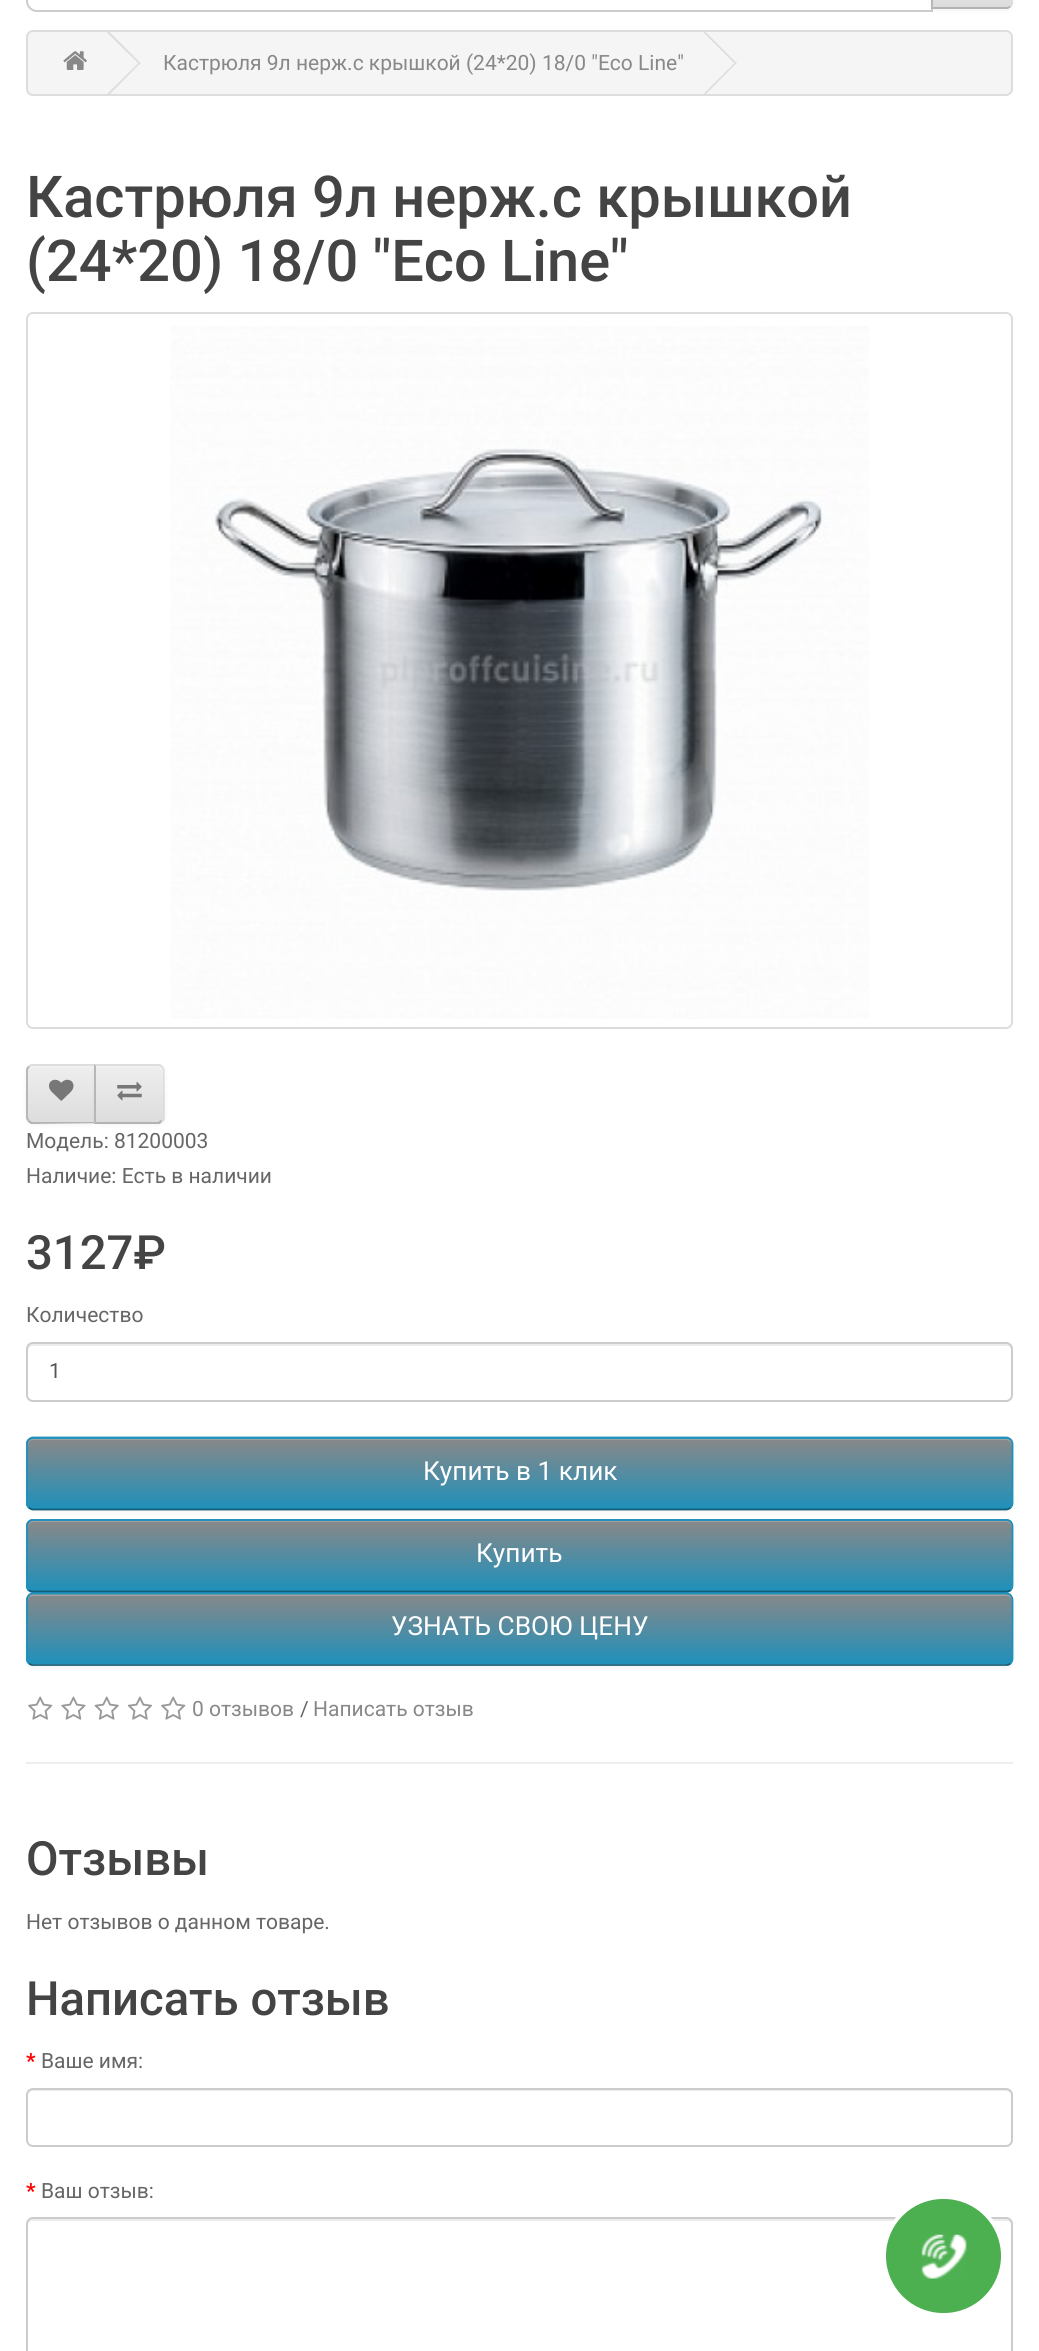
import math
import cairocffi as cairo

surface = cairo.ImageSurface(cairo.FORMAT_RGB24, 1039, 2351)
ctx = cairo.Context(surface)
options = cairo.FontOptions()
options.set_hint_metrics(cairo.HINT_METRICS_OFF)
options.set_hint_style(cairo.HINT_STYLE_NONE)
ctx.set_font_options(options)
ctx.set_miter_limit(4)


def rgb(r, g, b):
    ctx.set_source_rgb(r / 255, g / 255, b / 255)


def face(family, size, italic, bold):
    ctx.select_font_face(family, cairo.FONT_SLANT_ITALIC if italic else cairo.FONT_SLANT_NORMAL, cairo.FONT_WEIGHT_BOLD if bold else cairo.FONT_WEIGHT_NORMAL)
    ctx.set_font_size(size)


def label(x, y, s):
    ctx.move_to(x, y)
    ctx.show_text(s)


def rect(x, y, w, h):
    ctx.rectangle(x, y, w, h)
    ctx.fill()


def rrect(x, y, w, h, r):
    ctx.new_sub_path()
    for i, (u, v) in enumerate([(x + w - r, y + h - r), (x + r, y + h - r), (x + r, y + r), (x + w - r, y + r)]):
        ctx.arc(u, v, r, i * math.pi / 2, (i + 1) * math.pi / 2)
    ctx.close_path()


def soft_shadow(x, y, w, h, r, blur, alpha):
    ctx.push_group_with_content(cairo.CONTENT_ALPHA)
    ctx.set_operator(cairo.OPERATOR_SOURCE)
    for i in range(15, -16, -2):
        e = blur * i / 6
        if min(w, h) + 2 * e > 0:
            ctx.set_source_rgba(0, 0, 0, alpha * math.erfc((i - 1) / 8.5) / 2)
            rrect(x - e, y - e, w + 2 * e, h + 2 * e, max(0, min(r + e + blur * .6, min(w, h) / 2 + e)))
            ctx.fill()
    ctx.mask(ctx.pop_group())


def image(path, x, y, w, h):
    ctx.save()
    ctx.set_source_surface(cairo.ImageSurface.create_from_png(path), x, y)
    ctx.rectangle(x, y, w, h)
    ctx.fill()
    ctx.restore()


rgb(255, 255, 255)
ctx.paint()
ctx.new_path()
ctx.move_to(37, -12)
ctx.line_to(932, -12)
ctx.line_to(932, 11)
ctx.line_to(37, 11)
ctx.curve_to(31.5, 11, 27, 6.5, 27, 1)
ctx.line_to(27, -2)
ctx.curve_to(27, -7.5, 31.5, -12, 37, -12)
ctx.close_path()
rgb(204, 204, 204)
ctx.stroke()
rgb(0, 0, 0)
soft_shadow(931, -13, 82, 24, 7, 2, 0.05)
ctx.save()
ctx.new_path()
ctx.move_to(931, -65)
ctx.line_to(1006, -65)
ctx.curve_to(1010, -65, 1013, -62, 1013, -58)
ctx.line_to(1013, 2)
ctx.curve_to(1013, 6, 1010, 9, 1006, 9)
ctx.line_to(931, 9)
ctx.close_path()
ctx.clip()
gradient = cairo.LinearGradient(972, -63, 972, 7)
gradient.add_color_stop_rgba(0, 0.933, 0.933, 0.933, 1)
gradient.add_color_stop_rgba(1, 0.867, 0.867, 0.867, 1)
ctx.set_source(gradient)
rect(931, 0, 82, 7)
ctx.restore()
rgb(221, 221, 221)
ctx.new_path()
ctx.move_to(1011, -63)
ctx.curve_to(1012, -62, 1013, -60, 1013, -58)
ctx.line_to(1013, 2)
ctx.curve_to(1013, 4, 1012, 6, 1011, 7)
ctx.line_to(1010, 6)
ctx.curve_to(1011, 5, 1012, 4, 1012, 2)
ctx.line_to(1012, -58)
ctx.curve_to(1012, -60, 1011, -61, 1010, -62)
ctx.close_path()
ctx.fill()
rgb(179, 179, 179)
ctx.new_path()
ctx.move_to(1008, 9)
ctx.line_to(931, 9)
ctx.line_to(933, 7)
ctx.line_to(1006, 7)
ctx.curve_to(1008, 7, 1009, 6, 1010, 6)
ctx.line_to(1011, 7)
ctx.close_path()
ctx.fill()
rgb(183, 183, 183)
ctx.new_path()
ctx.move_to(931, 9)
ctx.line_to(933, 7)
ctx.line_to(933, -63)
ctx.line_to(931, -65)
ctx.close_path()
ctx.fill()
rgb(245, 245, 245)
rrect(27, 31, 985, 64, 6)
ctx.fill_preserve()
rgb(221, 221, 221)
ctx.stroke()
image('image0.png', 63, 51, 24, 19)
ctx.new_path()
ctx.move_to(107, 32.5)
ctx.line_to(108.5, 31)
ctx.line_to(140.5, 63)
ctx.line_to(139.5, 64.5)
ctx.close_path()
ctx.fill()
ctx.new_path()
ctx.move_to(107, 94)
ctx.line_to(139.5, 62)
ctx.line_to(140.5, 63)
ctx.line_to(108.5, 95.5)
ctx.close_path()
ctx.fill()
face('Roboto', 21, 0, 0)
rgb(136, 136, 136)
label(163, 70, 'Кастрюля 9л нерж.с крышкой (24*20) 18/0 "Eco Line"')
rgb(221, 221, 221)
ctx.new_path()
ctx.move_to(703.5, 32.5)
ctx.line_to(704.5, 31)
ctx.line_to(736.5, 63)
ctx.line_to(735.5, 64.5)
ctx.close_path()
ctx.fill()
ctx.new_path()
ctx.move_to(703.5, 94)
ctx.line_to(735.5, 62)
ctx.line_to(736.5, 63)
ctx.line_to(704.5, 95.5)
ctx.close_path()
ctx.fill()
face('Roboto Medium', 57.75, 0, 0)
rgb(68, 68, 68)
label(26, 217, 'Кастрюля 9л нерж.с крышкой')
label(26, 281, '(24*20) 18/0 "Eco Line"')
rrect(27, 313, 985, 715, 6)
rgb(221, 221, 221)
ctx.stroke()
image('image1.png', 170, 326, 699, 693)
rgb(0, 0, 0)
soft_shadow(26, 1066, 70, 59, 7, 2, 0.05)
rgb(231, 231, 231)
ctx.new_path()
ctx.move_to(33, 1064)
ctx.line_to(96, 1064)
ctx.line_to(96, 1124)
ctx.line_to(33, 1124)
ctx.curve_to(29, 1124, 26, 1121, 26, 1117)
ctx.line_to(26, 1071)
ctx.curve_to(26, 1067, 29, 1064, 33, 1064)
ctx.close_path()
ctx.fill()
ctx.save()
ctx.new_path()
ctx.move_to(33, 1064)
ctx.line_to(96, 1064)
ctx.line_to(96, 1124)
ctx.line_to(33, 1124)
ctx.curve_to(29, 1124, 26, 1121, 26, 1117)
ctx.line_to(26, 1071)
ctx.curve_to(26, 1067, 29, 1064, 33, 1064)
ctx.close_path()
ctx.clip()
gradient = cairo.LinearGradient(61, 1066, 61, 1122)
gradient.add_color_stop_rgba(0, 0.933, 0.933, 0.933, 1)
gradient.add_color_stop_rgba(1, 0.867, 0.867, 0.867, 1)
ctx.set_source(gradient)
rect(26, 1066, 68, 56)
ctx.restore()
ctx.set_source_rgba(1, 1, 1, 0.2)
ctx.new_path()
ctx.move_to(33, 1068)
ctx.line_to(94, 1068)
ctx.line_to(94, 1122)
ctx.line_to(95, 1122)
ctx.line_to(95, 1066)
ctx.line_to(33, 1066)
ctx.curve_to(30, 1066, 28, 1068, 28, 1071)
ctx.line_to(28, 1073)
ctx.curve_to(28, 1070, 30, 1068, 33, 1068)
ctx.close_path()
ctx.fill()
rgb(221, 221, 221)
ctx.new_path()
ctx.move_to(33, 1064)
ctx.curve_to(31, 1064, 29, 1065, 28, 1066)
ctx.line_to(30, 1067)
ctx.curve_to(30, 1066, 32, 1066, 33, 1066)
ctx.line_to(94, 1066)
ctx.line_to(96, 1064)
ctx.close_path()
ctx.fill()
rgb(179, 179, 179)
ctx.new_path()
ctx.move_to(31, 1124)
ctx.line_to(28, 1122)
ctx.line_to(29, 1120)
ctx.line_to(32, 1122)
ctx.line_to(94, 1122)
ctx.line_to(94, 1121)
ctx.line_to(96, 1123)
ctx.close_path()
ctx.fill()
rgb(183, 183, 183)
ctx.new_path()
ctx.move_to(26, 1069)
ctx.line_to(28, 1066)
ctx.line_to(30, 1067)
ctx.curve_to(29, 1068, 28, 1069, 28, 1071)
ctx.line_to(28, 1116)
ctx.curve_to(28, 1118, 29, 1119, 29, 1120)
ctx.line_to(28, 1122)
ctx.line_to(26, 1118)
ctx.close_path()
ctx.fill()
image('image2.png', 49, 1079, 25, 22)
rgb(0, 0, 0)
soft_shadow(95, 1066, 70, 59, 7, 2, 0.05)
rgb(231, 231, 231)
ctx.new_path()
ctx.move_to(95, 1064)
ctx.line_to(158, 1064)
ctx.curve_to(162, 1064, 165, 1067, 165, 1071)
ctx.line_to(165, 1117)
ctx.curve_to(165, 1121, 162, 1124, 158, 1124)
ctx.line_to(95, 1124)
ctx.close_path()
ctx.fill()
ctx.save()
ctx.new_path()
ctx.move_to(95, 1064)
ctx.line_to(158, 1064)
ctx.curve_to(162, 1064, 165, 1067, 165, 1071)
ctx.line_to(165, 1117)
ctx.curve_to(165, 1121, 162, 1124, 158, 1124)
ctx.line_to(95, 1124)
ctx.close_path()
ctx.clip()
gradient = cairo.LinearGradient(130, 1066, 130, 1122)
gradient.add_color_stop_rgba(0, 0.933, 0.933, 0.933, 1)
gradient.add_color_stop_rgba(1, 0.867, 0.867, 0.867, 1)
ctx.set_source(gradient)
rect(96, 1066, 69, 56)
ctx.restore()
rgb(241, 241, 241)
ctx.new_path()
ctx.move_to(96, 1068)
ctx.line_to(158, 1068)
ctx.curve_to(160, 1068, 163, 1070, 163, 1073)
ctx.line_to(163, 1071)
ctx.curve_to(163, 1068, 161, 1066, 158, 1066)
ctx.line_to(96, 1066)
ctx.close_path()
ctx.fill()
rgb(221, 221, 221)
ctx.new_path()
ctx.move_to(94, 1064)
ctx.line_to(96, 1066)
ctx.line_to(158, 1066)
ctx.curve_to(159, 1066, 160, 1066, 161, 1067)
ctx.line_to(162, 1066)
ctx.curve_to(161, 1065, 160, 1064, 158, 1064)
ctx.close_path()
ctx.fill()
ctx.new_path()
ctx.move_to(162, 1066)
ctx.curve_to(163, 1067, 164, 1069, 164, 1071)
ctx.line_to(164, 1116)
ctx.curve_to(164, 1118, 163, 1120, 162, 1121)
ctx.line_to(161, 1120)
ctx.curve_to(162, 1119, 163, 1118, 163, 1116)
ctx.line_to(163, 1071)
ctx.curve_to(163, 1069, 162, 1068, 161, 1067)
ctx.close_path()
ctx.fill()
rgb(179, 179, 179)
ctx.new_path()
ctx.move_to(162, 1121)
ctx.line_to(160, 1124)
ctx.line_to(94, 1124)
ctx.line_to(96, 1122)
ctx.line_to(158, 1122)
ctx.line_to(161, 1120)
ctx.close_path()
ctx.fill()
rgb(183, 183, 183)
ctx.new_path()
ctx.move_to(96, 1066)
ctx.line_to(94, 1064)
ctx.line_to(94, 1124)
ctx.line_to(96, 1122)
ctx.close_path()
ctx.fill()
image('image3.png', 117, 1082, 25, 19)
face('Roboto', 21, 0, 0)
rgb(102, 102, 102)
label(26, 1148, 'Модель: 81200003')
label(26, 1183, 'Наличие: Есть в наличии')
face('Roboto Medium', 47.25, 0, 0)
rgb(68, 68, 68)
label(26, 1269, '3127₽')
face('Roboto', 21, 0, 0)
rgb(102, 102, 102)
label(26, 1322, 'Количество')
rgb(236, 236, 236)
ctx.new_path()
ctx.move_to(33, 1346)
ctx.line_to(1006, 1346)
ctx.curve_to(1009, 1346, 1012, 1348, 1012, 1351)
ctx.line_to(1012, 1349)
ctx.curve_to(1012, 1346, 1010, 1344, 1007, 1344)
ctx.line_to(33, 1344)
ctx.curve_to(30, 1344, 28, 1346, 28, 1349)
ctx.line_to(28, 1351)
ctx.curve_to(28, 1348, 30, 1346, 33, 1346)
ctx.close_path()
ctx.fill()
rrect(27, 1343, 985, 58, 6)
rgb(204, 204, 204)
ctx.stroke()
rgb(85, 85, 85)
label(49, 1378, '1')
rgb(0, 0, 0)
soft_shadow(26, 1439, 987, 73, 7, 2, 0.05)
rgb(34, 154, 200)
rrect(26, 1437, 987, 73, 7)
ctx.fill()
ctx.save()
rrect(26, 1437, 987, 73, 7)
ctx.clip()
gradient = cairo.LinearGradient(520, 1439, 520, 1509)
gradient.add_color_stop_rgba(0, 0.533, 0.533, 0.533, 1)
gradient.add_color_stop_rgba(1, 0.122, 0.565, 0.733, 1)
ctx.set_source(gradient)
rect(26, 1439, 987, 70)
ctx.restore()
ctx.set_source_rgba(1, 1, 1, 0.2)
ctx.new_path()
ctx.move_to(33, 1440)
ctx.line_to(1006, 1440)
ctx.curve_to(1009, 1440, 1012, 1443, 1012, 1446)
ctx.line_to(1012, 1444)
ctx.curve_to(1012, 1441, 1010, 1439, 1007, 1439)
ctx.line_to(33, 1439)
ctx.curve_to(30, 1439, 28, 1441, 28, 1444)
ctx.line_to(28, 1446)
ctx.curve_to(28, 1443, 30, 1440, 33, 1440)
ctx.close_path()
ctx.fill()
ctx.new_path()
ctx.move_to(1010.5, 1507.5)
ctx.curve_to(1009.5, 1508.5, 1008, 1509.5, 1006, 1509.5)
ctx.line_to(33, 1509.5)
ctx.curve_to(31.5, 1509.5, 30, 1508.5, 29, 1507.5)
rgb(20, 94, 122)
ctx.set_line_width(1.8)
ctx.stroke()
ctx.new_path()
ctx.move_to(29, 1507.5)
ctx.curve_to(28, 1506.5, 27, 1505, 27, 1503)
ctx.line_to(27, 1444)
ctx.curve_to(27, 1442, 28, 1440.5, 29, 1439.5)
ctx.curve_to(30, 1438.5, 31.5, 1437.5, 33, 1437.5)
ctx.line_to(1006, 1437.5)
ctx.curve_to(1008, 1437.5, 1009.5, 1438.5, 1010.5, 1439.5)
ctx.curve_to(1011.5, 1440.5, 1012.5, 1442, 1012.5, 1444)
ctx.line_to(1012.5, 1503)
ctx.curve_to(1012.5, 1505, 1011.5, 1506.5, 1010.5, 1507.5)
rgb(31, 144, 187)
ctx.stroke()
face('Roboto', 26.25, 0, 0)
rgb(255, 255, 255)
label(423, 1480, 'Купить в 1 клик')
rgb(0, 0, 0)
soft_shadow(26, 1521, 987, 73, 7, 2, 0.05)
rgb(34, 154, 200)
rrect(26, 1519, 987, 74, 7)
ctx.fill()
ctx.save()
rrect(26, 1519, 987, 74, 7)
ctx.clip()
gradient = cairo.LinearGradient(520, 1521, 520, 1591)
gradient.add_color_stop_rgba(0, 0.533, 0.533, 0.533, 1)
gradient.add_color_stop_rgba(1, 0.122, 0.565, 0.733, 1)
ctx.set_source(gradient)
rect(26, 1521, 987, 70)
ctx.restore()
ctx.set_source_rgba(1, 1, 1, 0.2)
ctx.new_path()
ctx.move_to(33, 1522)
ctx.line_to(1006, 1522)
ctx.curve_to(1009, 1522, 1012, 1525, 1012, 1528)
ctx.line_to(1012, 1526)
ctx.curve_to(1012, 1523, 1010, 1521, 1007, 1521)
ctx.line_to(33, 1521)
ctx.curve_to(30, 1521, 28, 1523, 28, 1526)
ctx.line_to(28, 1528)
ctx.curve_to(28, 1525, 30, 1522, 33, 1522)
ctx.close_path()
ctx.fill()
ctx.new_path()
ctx.move_to(1010.5, 1590)
ctx.curve_to(1009.5, 1591, 1008, 1591.5, 1006, 1591.5)
ctx.line_to(33, 1591.5)
ctx.curve_to(31.5, 1591.5, 30, 1591, 29, 1590)
rgb(20, 94, 122)
ctx.stroke()
ctx.new_path()
ctx.move_to(29, 1590)
ctx.curve_to(28, 1588.5, 27, 1587, 27, 1585.5)
ctx.line_to(27, 1526)
ctx.curve_to(27, 1524.5, 28, 1523, 29, 1521.5)
ctx.curve_to(30, 1520.5, 31.5, 1520, 33, 1520)
ctx.line_to(1006, 1520)
ctx.curve_to(1008, 1520, 1009.5, 1520.5, 1010.5, 1521.5)
ctx.curve_to(1011.5, 1523, 1012.5, 1524.5, 1012.5, 1526)
ctx.line_to(1012.5, 1585.5)
ctx.curve_to(1012.5, 1587, 1011.5, 1588.5, 1010.5, 1590)
rgb(31, 144, 187)
ctx.stroke()
rgb(255, 255, 255)
label(476, 1562, 'Купить')
rgb(0, 0, 0)
soft_shadow(26, 1594, 987, 74, 7, 2, 0.05)
ctx.save()
rrect(26, 1593, 987, 73, 7)
ctx.clip()
gradient = cairo.LinearGradient(520, 1594, 520, 1664)
gradient.add_color_stop_rgba(0, 0.533, 0.533, 0.533, 1)
gradient.add_color_stop_rgba(1, 0.122, 0.565, 0.733, 1)
ctx.set_source(gradient)
rect(26, 1594, 987, 70)
ctx.restore()
ctx.set_source_rgba(1, 1, 1, 0.2)
ctx.new_path()
ctx.move_to(33, 1596)
ctx.line_to(1006, 1596)
ctx.curve_to(1009, 1596, 1012, 1598, 1012, 1601)
ctx.line_to(1012, 1599)
ctx.curve_to(1012, 1596, 1010, 1594, 1007, 1594)
ctx.line_to(33, 1594)
ctx.curve_to(30, 1594, 28, 1596, 28, 1599)
ctx.line_to(28, 1601)
ctx.curve_to(28, 1598, 30, 1596, 33, 1596)
ctx.close_path()
ctx.fill()
ctx.new_path()
ctx.move_to(1010.5, 1663.5)
ctx.curve_to(1009.5, 1664.5, 1008, 1665, 1006, 1665)
ctx.line_to(33, 1665)
ctx.curve_to(31.5, 1665, 30, 1664.5, 29, 1663.5)
rgb(20, 94, 122)
ctx.stroke()
ctx.new_path()
ctx.move_to(29, 1663.5)
ctx.curve_to(28, 1662, 27, 1660.5, 27, 1659)
ctx.line_to(27, 1599.5)
ctx.curve_to(27, 1598, 28, 1596.5, 29, 1595)
ctx.curve_to(30, 1594, 31.5, 1593.5, 33, 1593.5)
ctx.line_to(1006, 1593.5)
ctx.curve_to(1008, 1593.5, 1009.5, 1594, 1010.5, 1595)
ctx.curve_to(1011.5, 1596.5, 1012.5, 1598, 1012.5, 1599.5)
ctx.line_to(1012.5, 1659)
ctx.curve_to(1012.5, 1660.5, 1011.5, 1662, 1010.5, 1663.5)
rgb(31, 144, 187)
ctx.stroke()
rgb(255, 255, 255)
label(391, 1635, 'УЗНАТЬ СВОЮ ЦЕНУ')
image('image4.png', 28, 1696, 25, 24)
image('image5.png', 61, 1696, 25, 24)
image('image6.png', 94, 1696, 25, 24)
image('image7.png', 127, 1696, 26, 24)
image('image4.png', 161, 1696, 25, 24)
face('Roboto', 21, 0, 0)
rgb(136, 136, 136)
label(192, 1716, '0 отзывов')
rgb(102, 102, 102)
label(300, 1716, '/')
rgb(136, 136, 136)
label(313, 1716, 'Написать отзыв')
rgb(238, 238, 238)
rect(26, 1762, 987, 2)
face('Roboto Medium', 47.25, 0, 0)
rgb(68, 68, 68)
label(26, 1875, 'Отзывы')
face('Roboto', 21, 0, 0)
rgb(102, 102, 102)
label(26, 1929, 'Нет отзывов о данном товаре.')
face('Roboto Medium', 47.25, 0, 0)
rgb(68, 68, 68)
label(26, 2015, 'Написать отзыв')
face('Roboto', 21, 0, 1)
rgb(255, 0, 0)
label(26, 2068, '*')
face('Roboto', 21, 0, 0)
rgb(102, 102, 102)
label(41, 2068, 'Ваше имя:')
rgb(236, 236, 236)
ctx.new_path()
ctx.move_to(33, 2091)
ctx.line_to(1006, 2091)
ctx.curve_to(1009, 2091, 1012, 2094, 1012, 2096)
ctx.curve_to(1012, 2093, 1010, 2090, 1007, 2090)
ctx.line_to(33, 2090)
ctx.curve_to(30, 2090, 28, 2093, 28, 2096)
ctx.curve_to(28, 2094, 30, 2091, 33, 2091)
ctx.close_path()
ctx.fill()
rrect(27, 2089, 985, 57, 6)
rgb(204, 204, 204)
ctx.set_line_width(2)
ctx.stroke()
face('Roboto', 21, 0, 1)
rgb(255, 0, 0)
label(26, 2198, '*')
face('Roboto', 21, 0, 0)
rgb(102, 102, 102)
label(41, 2198, 'Ваш отзыв:')
rgb(236, 236, 236)
ctx.new_path()
ctx.move_to(33, 2221)
ctx.line_to(1006, 2221)
ctx.curve_to(1009, 2221, 1012, 2223, 1012, 2226)
ctx.line_to(1012, 2224)
ctx.curve_to(1012, 2221, 1010, 2219, 1007, 2219)
ctx.line_to(33, 2219)
ctx.curve_to(30, 2219, 28, 2221, 28, 2224)
ctx.line_to(28, 2226)
ctx.curve_to(28, 2223, 30, 2221, 33, 2221)
ctx.close_path()
ctx.fill()
rrect(27, 2218, 985, 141, 6)
rgb(204, 204, 204)
ctx.stroke()
rgb(76, 175, 80)
rrect(884, 2197, 119, 118, 59)
ctx.fill_preserve()
rgb(255, 255, 255)
ctx.set_line_width(4)
ctx.stroke()
image('image8.png', 921, 2234, 46, 45)
surface.write_to_png('render.png')
